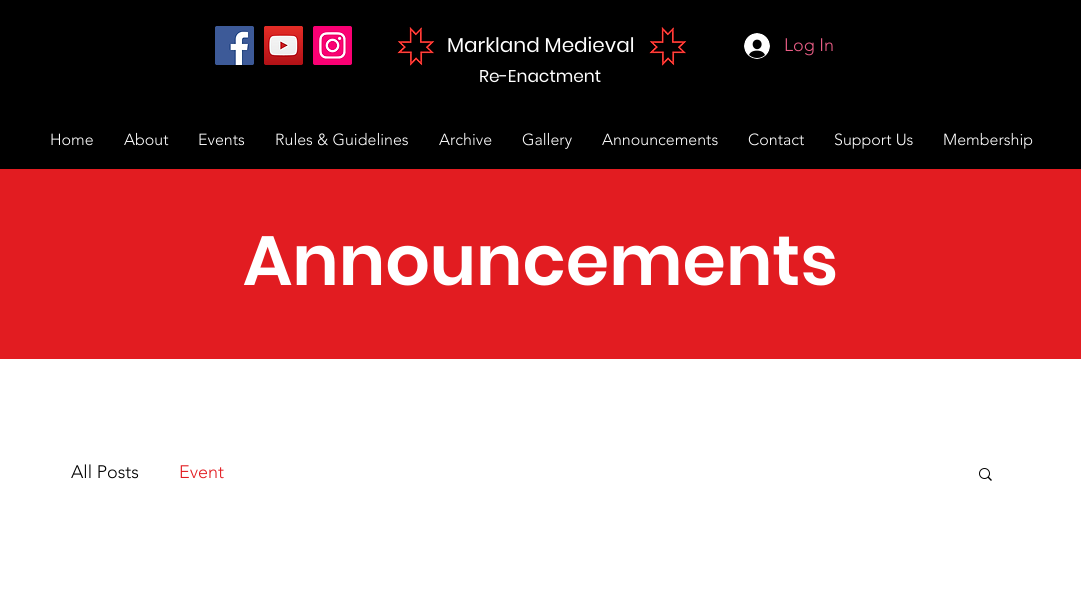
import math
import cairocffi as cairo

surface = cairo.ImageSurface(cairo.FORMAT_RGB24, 1081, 615)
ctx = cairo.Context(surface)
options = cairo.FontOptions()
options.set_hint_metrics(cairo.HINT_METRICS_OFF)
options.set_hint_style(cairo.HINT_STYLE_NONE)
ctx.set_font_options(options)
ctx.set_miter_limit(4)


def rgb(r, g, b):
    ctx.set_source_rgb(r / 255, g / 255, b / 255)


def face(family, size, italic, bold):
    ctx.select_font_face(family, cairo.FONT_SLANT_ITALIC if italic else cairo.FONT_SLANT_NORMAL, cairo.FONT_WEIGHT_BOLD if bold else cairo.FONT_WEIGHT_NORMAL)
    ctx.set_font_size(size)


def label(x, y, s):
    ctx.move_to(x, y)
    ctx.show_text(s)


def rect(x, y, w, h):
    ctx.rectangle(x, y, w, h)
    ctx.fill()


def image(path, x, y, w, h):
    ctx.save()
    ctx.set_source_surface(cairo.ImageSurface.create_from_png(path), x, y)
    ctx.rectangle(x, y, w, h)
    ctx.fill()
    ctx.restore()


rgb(255, 255, 255)
ctx.paint()
rgb(0, 0, 0)
rect(0, 0, 1081, 169)
image('image0.png', 215, 26, 39, 39)
image('image1.png', 264, 26, 39, 39)
image('image2.png', 313, 26, 39, 39)
image('image3.png', 397, 27, 38, 39)
face('Poppins', 20, 0, 0)
rgb(255, 255, 255)
label(447, 52, 'Markland Medieval')
face('Poppins', 17, 0, 0)
label(479, 82, 'Re-Enactment')
image('image3.png', 649, 27, 38, 39)
image('image4.png', 744, 33, 26, 26)
face('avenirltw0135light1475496 Light', 18, 0, 0)
rgb(236, 94, 135)
label(784, 51, 'Log In')
face('avenirltw0135light1475496 Light', 16, 0, 0)
rgb(255, 255, 255)
label(50, 145, 'Home')
label(124, 145, 'About')
label(198, 145, 'Events')
label(275, 145, 'Rules & Guidelines')
label(439, 145, 'Archive')
label(522, 145, 'Gallery')
label(602, 145, 'Announcements')
label(748, 145, 'Contact')
label(834, 145, 'Support Us')
label(943, 145, 'Membership')
rgb(226, 28, 33)
rect(0, 169, 1081, 190)
face('Poppins SemiBold', 70, 0, 0)
rgb(255, 255, 255)
label(243, 285, 'Announcements')
face('avenirltw0135light1475496 Light', 18, 0, 0)
rgb(0, 0, 0)
label(71, 478, 'All Posts')
rgb(226, 28, 33)
label(179, 478, 'Event')
image('image5.png', 979, 468, 13, 13)
surface.write_to_png('render.png')
